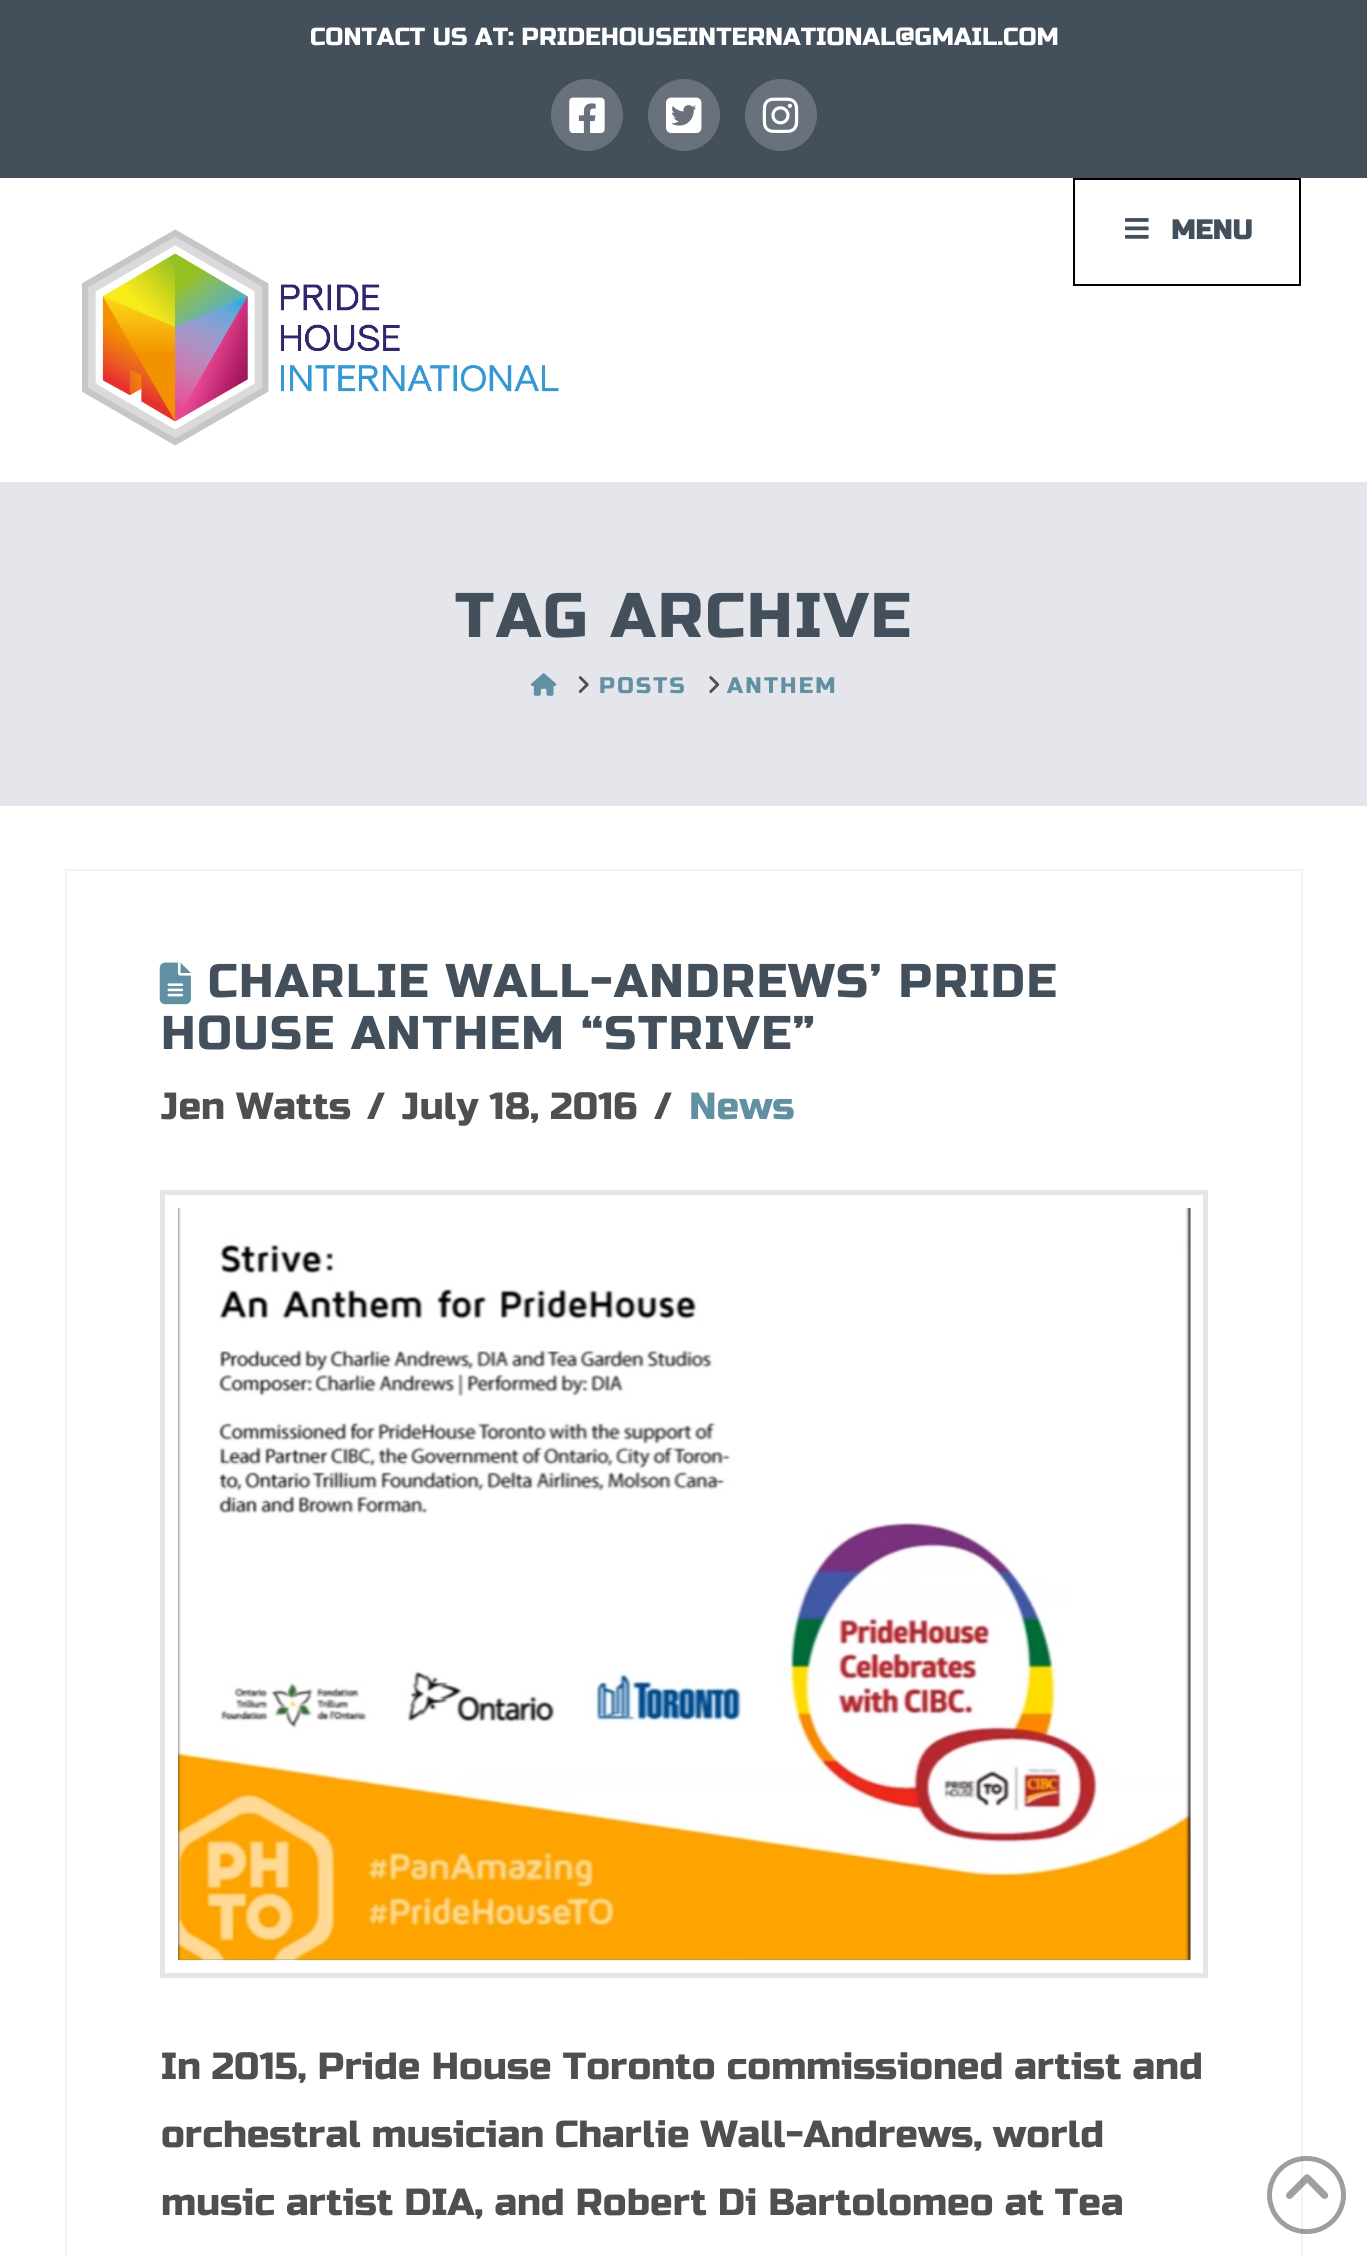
import math
import cairocffi as cairo

surface = cairo.ImageSurface(cairo.FORMAT_RGB24, 1367, 2256)
ctx = cairo.Context(surface)
options = cairo.FontOptions()
options.set_hint_metrics(cairo.HINT_METRICS_OFF)
options.set_hint_style(cairo.HINT_STYLE_NONE)
ctx.set_font_options(options)
ctx.set_miter_limit(4)


def rgb(r, g, b):
    ctx.set_source_rgb(r / 255, g / 255, b / 255)


def face(family, size, italic, bold):
    ctx.select_font_face(family, cairo.FONT_SLANT_ITALIC if italic else cairo.FONT_SLANT_NORMAL, cairo.FONT_WEIGHT_BOLD if bold else cairo.FONT_WEIGHT_NORMAL)
    ctx.set_font_size(size)


def label(x, y, s):
    ctx.move_to(x, y)
    ctx.show_text(s)


def tracked(x, y, s, letter, word):
    ctx.move_to(x, y)
    for ch in s:
        ctx.show_text(ch)
        ctx.rel_move_to(letter + word * (ch == ' '), 0)


def rect(x, y, w, h):
    ctx.rectangle(x, y, w, h)
    ctx.fill()


def rrect(x, y, w, h, r):
    ctx.new_sub_path()
    for i, (u, v) in enumerate([(x + w - r, y + h - r), (x + r, y + h - r), (x + r, y + r), (x + w - r, y + r)]):
        ctx.arc(u, v, r, i * math.pi / 2, (i + 1) * math.pi / 2)
    ctx.close_path()


def image(path, x, y, w, h):
    ctx.save()
    ctx.set_source_surface(cairo.ImageSurface.create_from_png(path), x, y)
    ctx.rectangle(x, y, w, h)
    ctx.fill()
    ctx.restore()


rgb(255, 255, 255)
ctx.paint()
rgb(67, 79, 91)
rect(0, 0, 1367, 178)
face('Russo One', 24.75, 0, 0)
rgb(255, 255, 255)
label(310, 45, 'CONTACT US AT: PRIDEHOUSEINTERNATIONAL@GMAIL.COM')
rgb(105, 114, 124)
ctx.new_path()
ctx.arc(587, 115, 36, 0, 2 * math.pi)
ctx.fill()
image('image0.png', 569, 97, 36, 36)
ctx.arc(684, 115, 36, 0, 2 * math.pi)
ctx.fill()
image('image1.png', 666, 97, 36, 36)
ctx.arc(781, 115, 36, 0, 2 * math.pi)
ctx.fill()
image('image2.png', 762, 97, 37, 36)
image('image3.png', 82, 229, 477, 217)
ctx.rectangle(1074, 179, 226, 106)
rgb(0, 0, 0)
ctx.stroke()
image('image4.png', 1125, 218, 24, 21)
face('Russo One', 27, 0, 1)
rgb(67, 79, 91)
label(1171, 239, 'MENU')
rgb(228, 230, 236)
rect(0, 482, 1367, 324)
face('Russo One', 63, 0, 0)
rgb(67, 79, 91)
tracked(455, 637, 'TAG ARCHIVE', 2.25, 0)
image('image5.png', 531, 673, 26, 23)
image('image6.png', 578, 676, 11, 17)
face('Russo One', 22.5, 0, 0)
rgb(97, 144, 162)
tracked(599, 693, 'POSTS', 2.25, 0)
image('image7.png', 709, 676, 11, 17)
tracked(727, 693, 'ANTHEM', 2.25, 0)
ctx.rectangle(66, 870, 1236, 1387)
rgb(242, 242, 242)
ctx.stroke()
image('image8.png', 159, 962, 32, 43)
face('Russo One', 47.25, 0, 0)
rgb(67, 79, 91)
tracked(208, 997, 'CHARLIE WALL-ANDREWS’ PRIDE', 1.65, 0)
tracked(161, 1049, 'HOUSE ANTHEM “STRIVE”', 1.65, 0)
face('Russo One', 37.8, 0, 0)
rgb(79, 79, 79)
label(161, 1119, 'Jen Watts')
label(367, 1119, '/')
label(402, 1119, 'July 18, 2016')
label(654, 1119, '/')
rgb(97, 144, 162)
label(689, 1119, 'News')
ctx.rectangle(162.5, 1192.5, 1043, 783)
rgb(229, 229, 229)
ctx.set_line_width(5)
ctx.stroke()
rgb(97, 144, 162)
rect(178, 1208, 1012, 752)
image('image9.png', 178, 1208, 1013, 753)
rgb(79, 79, 79)
tracked(161, 2079, 'In 2015, Pride House Toronto commissioned artist and', 0, -0.25)
tracked(161, 2147, 'orchestral musician Charlie Wall-Andrews, world', 0, -0.5)
tracked(161, 2215, 'music artist DIA, and Robert Di Bartolomeo at Tea', 0, -0.25)
rrect(1269.5, 2158.5, 74, 73, 36.5)
ctx.set_source_rgba(0, 0, 0, 0.38)
ctx.stroke()
image('image10.png', 1286, 2174, 43, 25)
surface.write_to_png('render.png')
